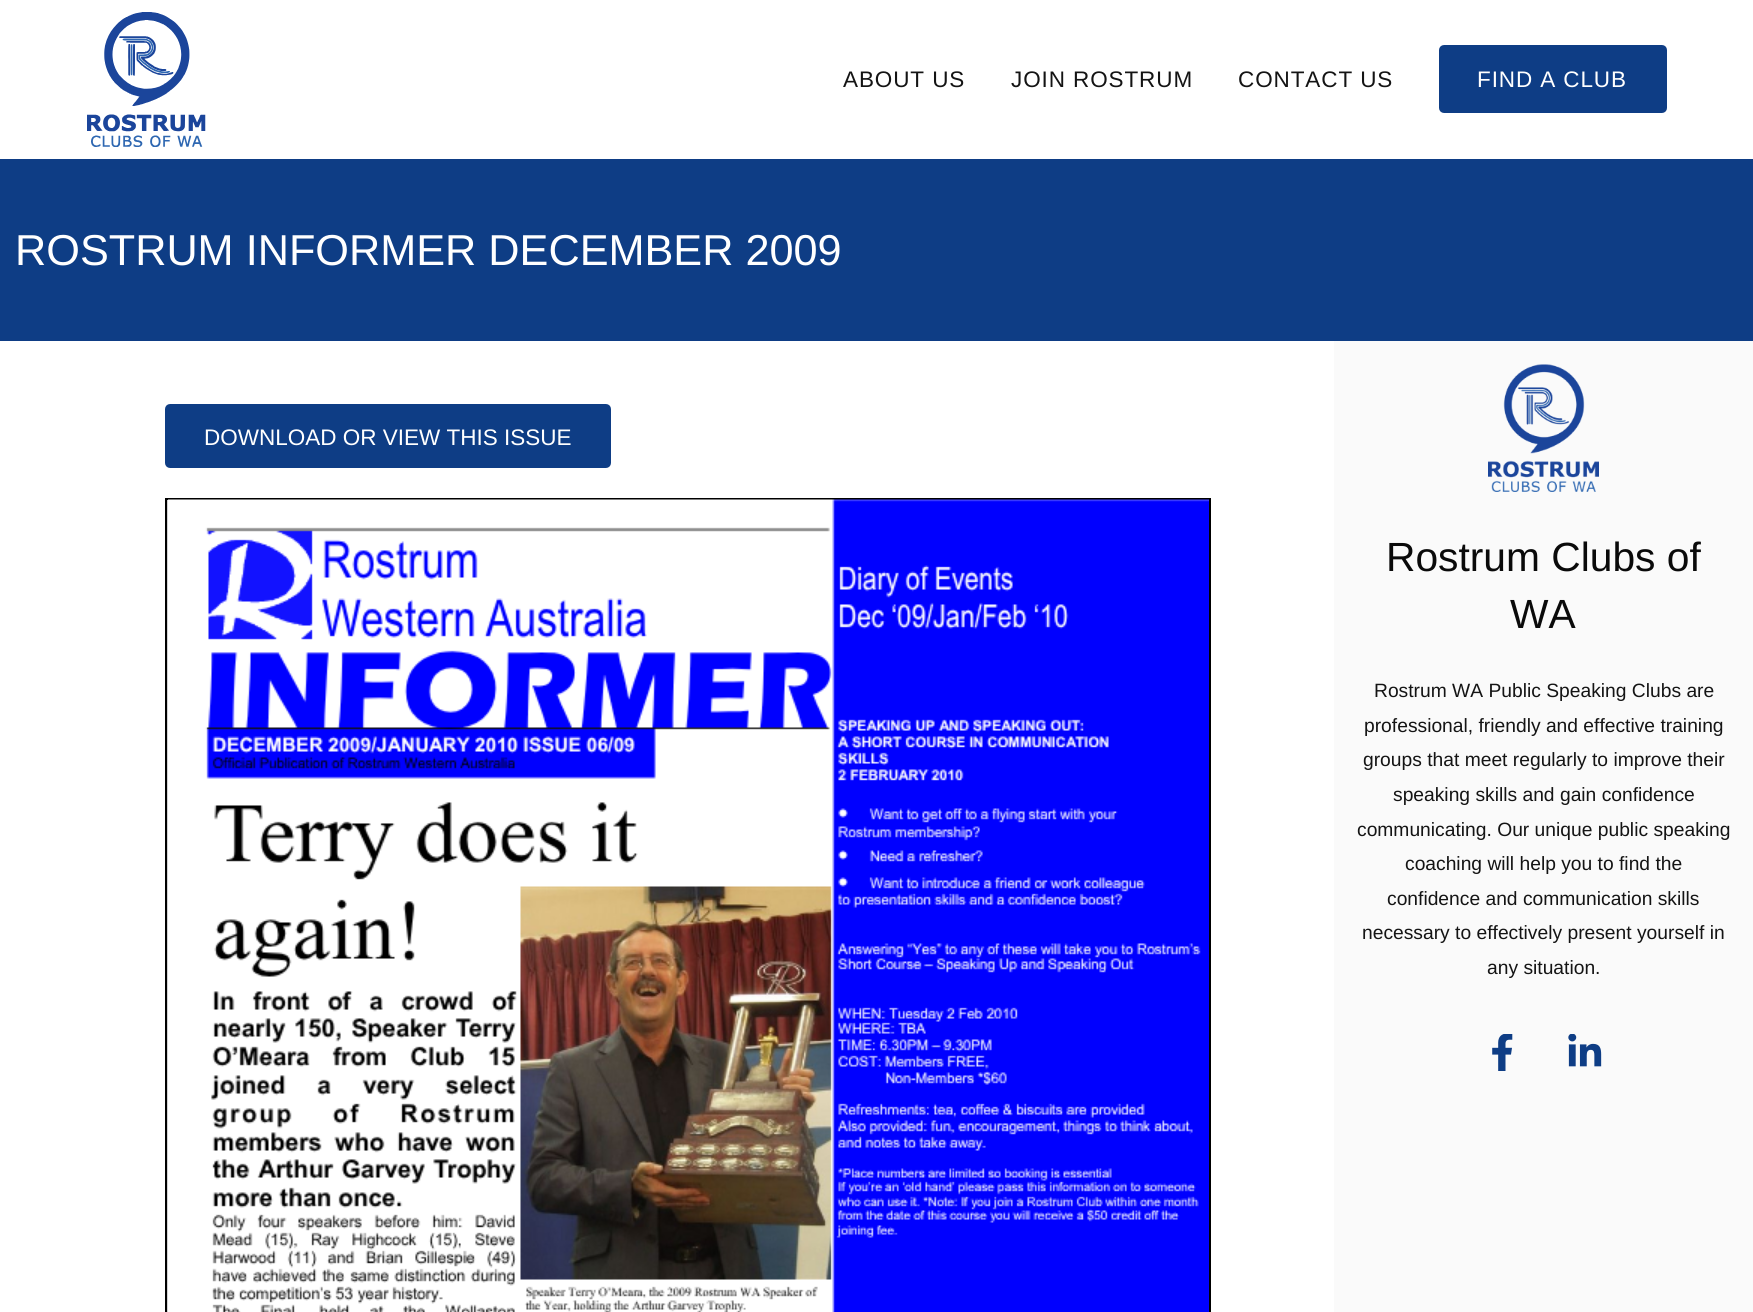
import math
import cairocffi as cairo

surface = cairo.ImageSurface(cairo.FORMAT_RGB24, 1753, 1312)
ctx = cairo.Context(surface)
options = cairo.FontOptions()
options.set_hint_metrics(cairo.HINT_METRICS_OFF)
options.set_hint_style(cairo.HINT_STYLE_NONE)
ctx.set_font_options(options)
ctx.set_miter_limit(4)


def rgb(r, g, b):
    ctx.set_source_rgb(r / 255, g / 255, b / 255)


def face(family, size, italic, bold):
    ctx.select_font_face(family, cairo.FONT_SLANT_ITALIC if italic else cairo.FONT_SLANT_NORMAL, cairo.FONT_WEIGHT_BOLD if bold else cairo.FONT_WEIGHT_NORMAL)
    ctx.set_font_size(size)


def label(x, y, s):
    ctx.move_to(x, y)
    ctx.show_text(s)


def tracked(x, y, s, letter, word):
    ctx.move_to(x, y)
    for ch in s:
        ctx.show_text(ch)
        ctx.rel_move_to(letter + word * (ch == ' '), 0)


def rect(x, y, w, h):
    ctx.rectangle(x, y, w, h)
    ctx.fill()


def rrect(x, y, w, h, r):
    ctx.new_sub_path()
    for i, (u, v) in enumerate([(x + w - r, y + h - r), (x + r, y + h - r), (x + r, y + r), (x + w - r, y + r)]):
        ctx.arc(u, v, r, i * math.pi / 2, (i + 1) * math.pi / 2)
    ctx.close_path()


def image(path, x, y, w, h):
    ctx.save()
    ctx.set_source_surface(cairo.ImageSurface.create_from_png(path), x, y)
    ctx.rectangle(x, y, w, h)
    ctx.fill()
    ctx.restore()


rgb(255, 255, 255)
ctx.paint()
image('image0.png', 87, 12, 119, 135)
face('Liberation Sans', 22.5, 0, 0)
rgb(20, 20, 20)
tracked(843, 87, 'ABOUT US', 0.9, 0)
tracked(1011, 87, 'JOIN ROSTRUM', 0.9, 0)
tracked(1238, 87, 'CONTACT US', 0.9, 0)
rgb(14, 61, 133)
rrect(1440.5, 46.5, 225, 65, 3.5)
ctx.fill_preserve()
ctx.set_line_width(3)
ctx.stroke()
rgb(255, 255, 255)
tracked(1477, 87, 'FIND A CLUB', 0.9, 0)
rgb(14, 61, 133)
rect(0, 159, 1753, 182)
face('Liberation Sans', 43.25, 0, 0)
rgb(255, 255, 255)
label(15, 265, 'ROSTRUM INFORMER DECEMBER 2009')
rgb(14, 61, 133)
rrect(166.5, 405.5, 443, 61, 3.5)
ctx.fill_preserve()
ctx.stroke()
face('Liberation Sans', 22.5, 0, 0)
rgb(255, 255, 255)
label(204, 445, 'DOWNLOAD OR VIEW THIS ISSUE')
rgb(211, 211, 211)
rect(167, 500, 1, 812)
ctx.rectangle(166, 499, 1044, 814)
rgb(0, 0, 0)
ctx.set_line_width(2)
ctx.stroke()
image('image1.png', 168, 499, 1041, 813)
rgb(250, 250, 250)
rect(1334, 341, 419, 971)
image('image2.png', 1488, 364, 111, 128)
face('Liberation Sans', 40.75, 0, 0)
rgb(10, 10, 10)
label(1386, 571, 'Rostrum Clubs of')
label(1510, 628, 'WA')
face('Liberation Sans', 19.25, 0, 0)
rgb(20, 20, 20)
label(1374, 697, 'Rostrum WA Public Speaking Clubs are')
label(1364, 732, 'professional, friendly and effective training')
label(1363, 766, 'groups that meet regularly to improve their')
label(1393, 801, 'speaking skills and gain confidence')
label(1357, 836, 'communicating. Our unique public speaking')
label(1405, 870, 'coaching will help you to find the')
label(1387, 905, 'confidence and communication skills')
label(1362, 939, 'necessary to effectively present yourself in')
label(1487, 974, 'any situation.')
image('image3.png', 1492, 1034, 21, 37)
image('image4.png', 1568, 1034, 34, 33)
surface.write_to_png('render.png')
